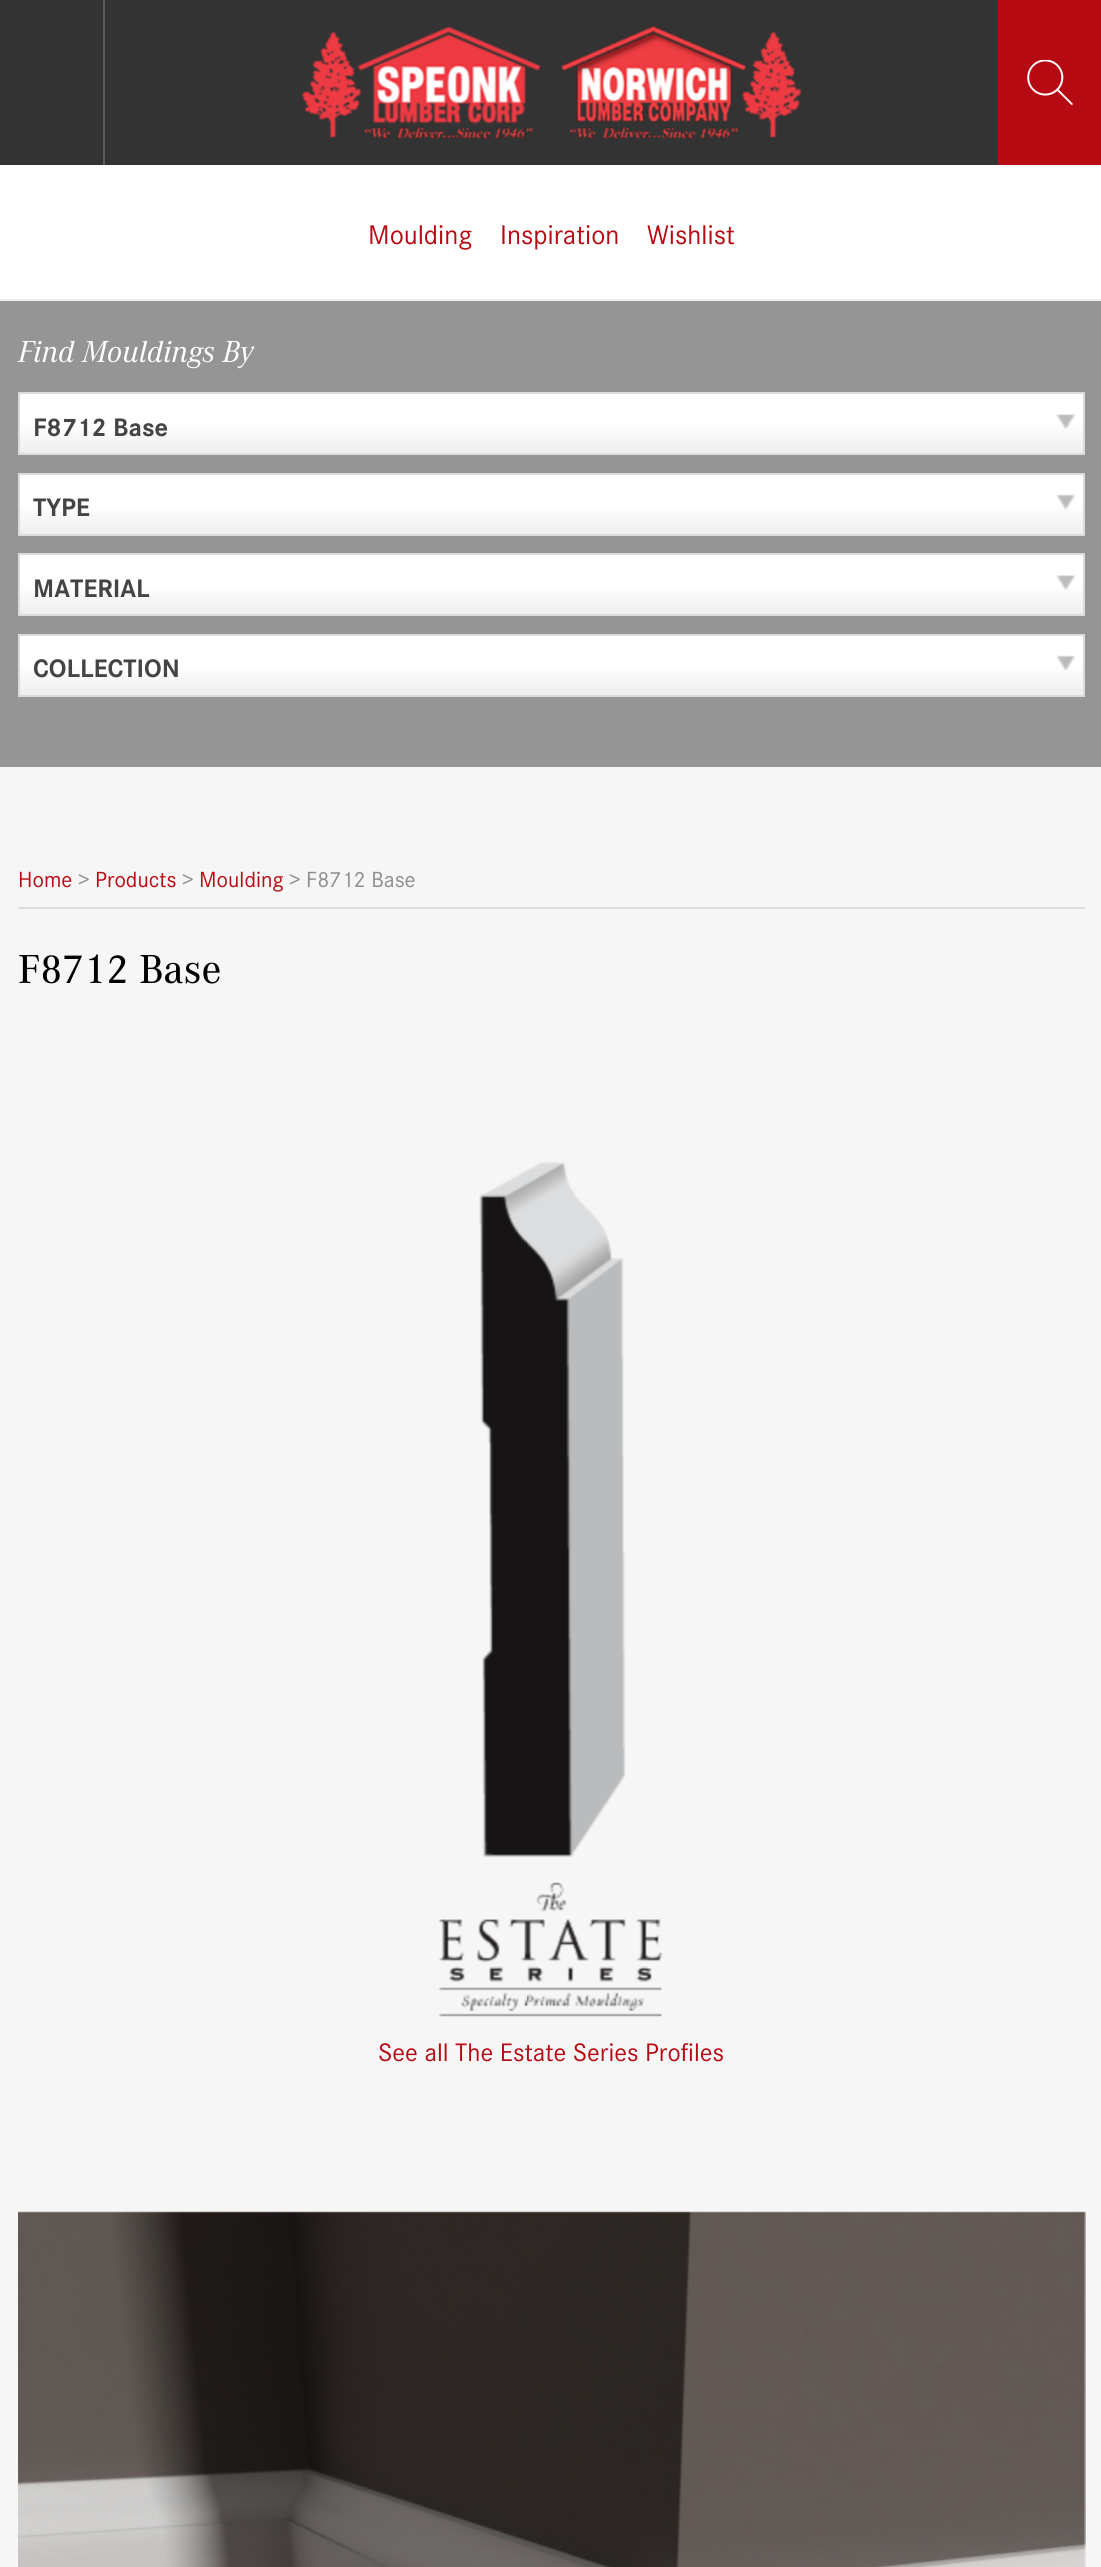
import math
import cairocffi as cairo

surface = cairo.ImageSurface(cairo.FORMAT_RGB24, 1101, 2567)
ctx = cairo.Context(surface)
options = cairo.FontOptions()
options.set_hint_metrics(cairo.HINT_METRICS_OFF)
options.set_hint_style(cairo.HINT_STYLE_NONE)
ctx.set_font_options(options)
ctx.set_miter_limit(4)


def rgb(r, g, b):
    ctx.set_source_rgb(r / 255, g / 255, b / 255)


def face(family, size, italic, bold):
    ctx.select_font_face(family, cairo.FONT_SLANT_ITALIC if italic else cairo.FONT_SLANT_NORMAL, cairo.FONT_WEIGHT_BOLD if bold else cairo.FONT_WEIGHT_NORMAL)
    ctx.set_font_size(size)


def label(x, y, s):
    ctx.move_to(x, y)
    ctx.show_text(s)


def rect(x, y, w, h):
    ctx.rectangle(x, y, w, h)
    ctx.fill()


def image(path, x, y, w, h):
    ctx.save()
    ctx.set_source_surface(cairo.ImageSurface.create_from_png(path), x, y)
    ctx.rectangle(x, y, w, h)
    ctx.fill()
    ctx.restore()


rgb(255, 255, 255)
ctx.paint()
rgb(51, 51, 51)
rect(0, 0, 998, 165)
rgb(90, 90, 90)
rect(103, 0, 2, 165)
image('image0.png', 302, 26, 500, 113)
rgb(183, 11, 19)
rect(998, 0, 103, 165)
image('image1.png', 1027, 60, 46, 45)
rgb(235, 235, 235)
rect(0, 299, 1101, 2)
face('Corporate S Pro', 28, 0, 0)
rgb(183, 11, 19)
label(368, 244, 'Moulding')
label(500, 244, 'Inspiration')
label(647, 244, 'Wishlist')
rgb(149, 149, 149)
rect(0, 301, 1101, 466)
face('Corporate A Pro', 31.5, 1, 0)
rgb(255, 255, 255)
label(18, 362, 'Find Mouldings By')
gradient = cairo.LinearGradient(19, 453, 19, 394)
gradient.add_color_stop_rgba(0, 0.933, 0.933, 0.933, 1)
gradient.add_color_stop_rgba(0.5, 1, 1, 1, 1)
ctx.set_source(gradient)
rect(20, 394, 1063, 59)
ctx.rectangle(19, 393, 1065, 61)
rgb(219, 219, 219)
ctx.stroke()
face('Corporate S Pro', 26.25, 0, 1)
rgb(68, 68, 68)
label(33, 436, 'F8712 Base')
image('image2.png', 1056, 414, 20, 15)
gradient = cairo.LinearGradient(19, 534, 19, 474)
gradient.add_color_stop_rgba(0, 0.933, 0.933, 0.933, 1)
gradient.add_color_stop_rgba(0.5, 1, 1, 1, 1)
ctx.set_source(gradient)
rect(20, 475, 1063, 59)
ctx.rectangle(19, 474, 1065, 61)
rgb(219, 219, 219)
ctx.stroke()
rgb(68, 68, 68)
label(33, 516, 'TYPE')
image('image3.png', 1056, 494, 20, 16)
gradient = cairo.LinearGradient(19, 614, 19, 555)
gradient.add_color_stop_rgba(0, 0.933, 0.933, 0.933, 1)
gradient.add_color_stop_rgba(0.5, 1, 1, 1, 1)
ctx.set_source(gradient)
rect(20, 555, 1063, 59)
ctx.rectangle(19, 554, 1065, 61)
rgb(219, 219, 219)
ctx.stroke()
rgb(68, 68, 68)
label(33, 597, 'MATERIAL')
image('image2.png', 1056, 575, 20, 15)
gradient = cairo.LinearGradient(19, 695, 19, 635)
gradient.add_color_stop_rgba(0, 0.933, 0.933, 0.933, 1)
gradient.add_color_stop_rgba(0.5, 1, 1, 1, 1)
ctx.set_source(gradient)
rect(20, 636, 1063, 59)
ctx.rectangle(19, 635, 1065, 61)
rgb(219, 219, 219)
ctx.stroke()
rgb(68, 68, 68)
label(33, 677, 'COLLECTION')
image('image3.png', 1056, 655, 20, 16)
rgb(246, 246, 246)
rect(0, 767, 1101, 1800)
rgb(221, 221, 221)
rect(18, 907, 1067, 2)
face('Corporate S Pro', 22.75, 0, 0)
rgb(183, 11, 19)
label(18, 887, 'Home')
rgb(141, 141, 141)
label(78, 887, '>')
rgb(183, 11, 19)
label(95, 887, 'Products')
rgb(141, 141, 141)
label(182, 887, '>')
rgb(183, 11, 19)
label(199, 887, 'Moulding')
rgb(141, 141, 141)
label(289, 887, '> F8712 Base')
face('Corporate A Pro Medium', 42, 0, 0)
rgb(0, 0, 0)
label(18, 983, 'F8712 Base')
image('image4.png', 479, 1162, 147, 696)
image('image5.png', 438, 1882, 224, 135)
face('Corporate S Pro', 26.25, 0, 0)
rgb(183, 11, 19)
label(378, 2061, 'See all The Estate Series Profiles')
image('image6.png', 18, 2211, 1068, 356)
surface.write_to_png('render.png')
